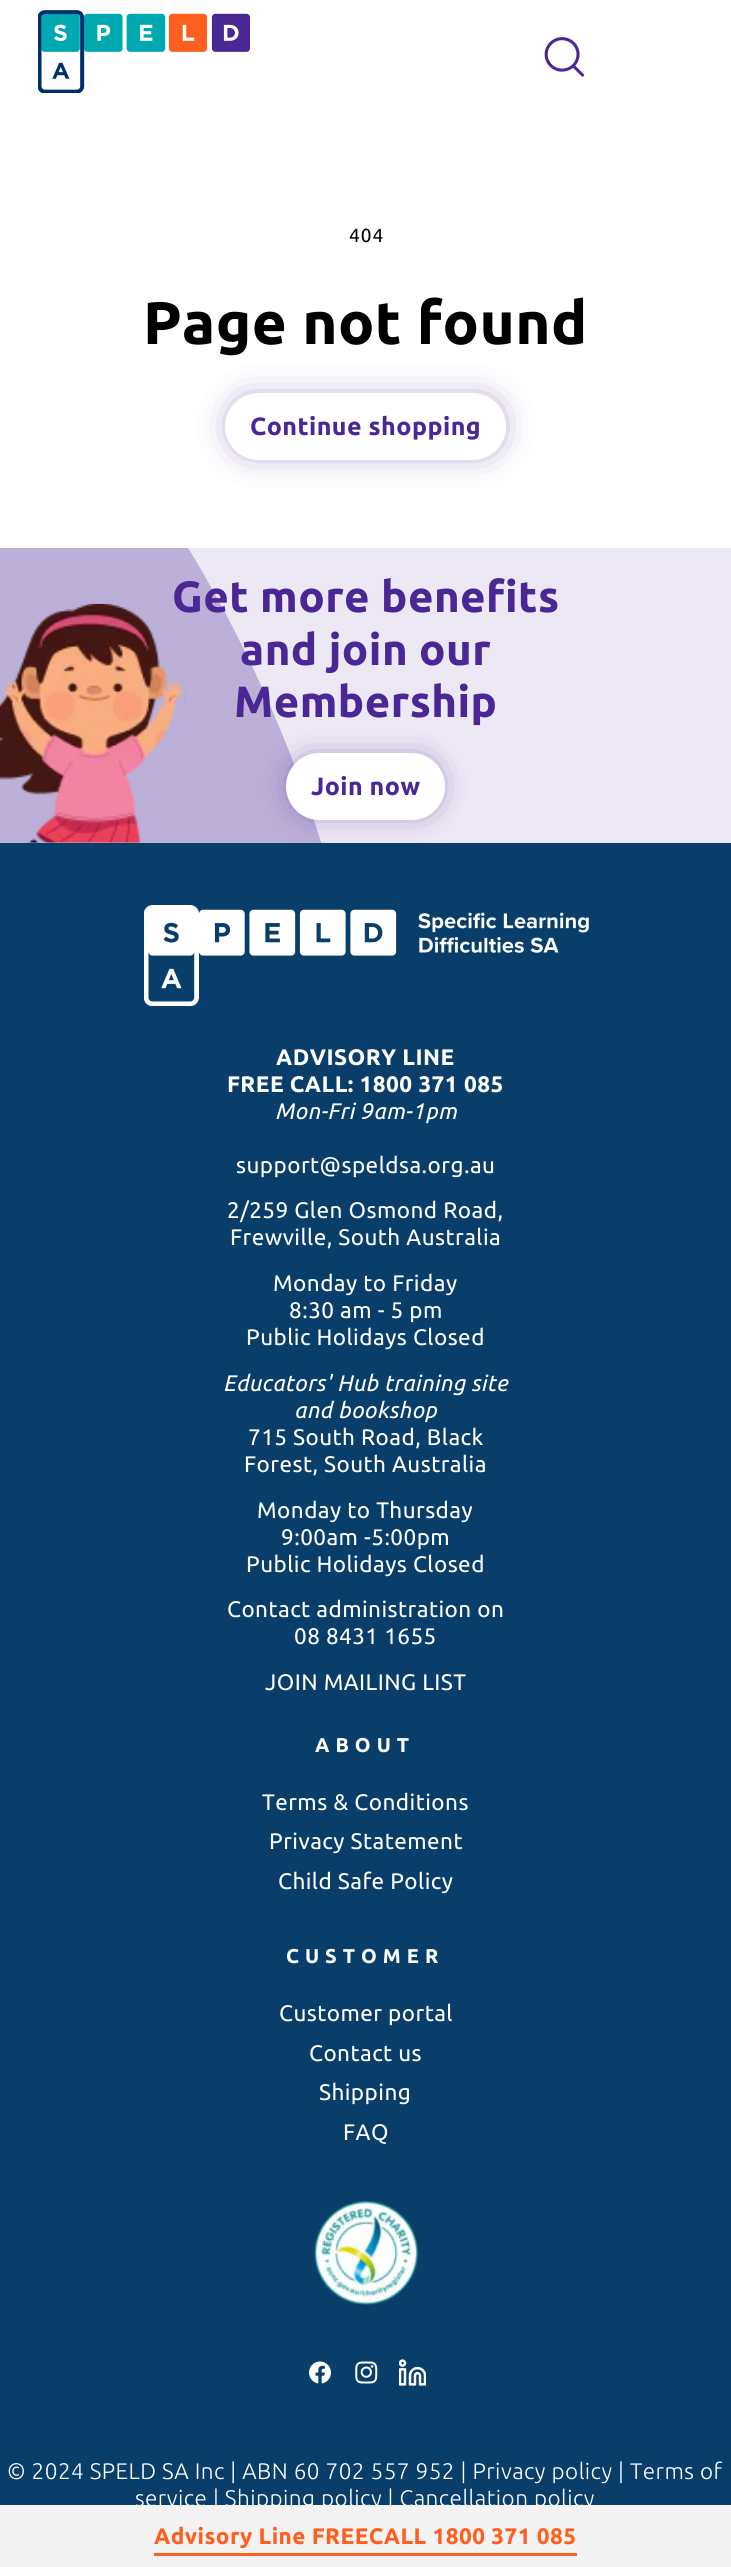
import math
import cairocffi as cairo

surface = cairo.ImageSurface(cairo.FORMAT_RGB24, 731, 2567)
ctx = cairo.Context(surface)
options = cairo.FontOptions()
options.set_hint_metrics(cairo.HINT_METRICS_OFF)
options.set_hint_style(cairo.HINT_STYLE_NONE)
ctx.set_font_options(options)
ctx.set_miter_limit(4)


def rgb(r, g, b):
    ctx.set_source_rgb(r / 255, g / 255, b / 255)


def face(family, size, italic, bold):
    ctx.select_font_face(family, cairo.FONT_SLANT_ITALIC if italic else cairo.FONT_SLANT_NORMAL, cairo.FONT_WEIGHT_BOLD if bold else cairo.FONT_WEIGHT_NORMAL)
    ctx.set_font_size(size)


def tracked(x, y, s, letter, word):
    ctx.move_to(x, y)
    for ch in s:
        ctx.show_text(ch)
        ctx.rel_move_to(letter + word * (ch == ' '), 0)


def rect(x, y, w, h):
    ctx.rectangle(x, y, w, h)
    ctx.fill()


def rrect(x, y, w, h, r):
    ctx.new_sub_path()
    for i, (u, v) in enumerate([(x + w - r, y + h - r), (x + r, y + h - r), (x + r, y + r), (x + w - r, y + r)]):
        ctx.arc(u, v, r, i * math.pi / 2, (i + 1) * math.pi / 2)
    ctx.close_path()


def soft_shadow(x, y, w, h, r, blur, alpha):
    ctx.push_group_with_content(cairo.CONTENT_ALPHA)
    ctx.set_operator(cairo.OPERATOR_SOURCE)
    for i in range(15, -16, -2):
        e = blur * i / 6
        if min(w, h) + 2 * e > 0:
            ctx.set_source_rgba(0, 0, 0, alpha * math.erfc((i - 1) / 8.5) / 2)
            rrect(x - e, y - e, w + 2 * e, h + 2 * e, max(0, min(r + e + blur * .6, min(w, h) / 2 + e)))
            ctx.fill()
    ctx.mask(ctx.pop_group())


def image(path, x, y, w, h):
    ctx.save()
    ctx.set_source_surface(cairo.ImageSurface.create_from_png(path), x, y)
    ctx.rectangle(x, y, w, h)
    ctx.fill()
    ctx.restore()


rgb(255, 255, 255)
ctx.paint()
face('Ubuntu', 19, 0, 0)
rgb(0, 0, 0)
tracked(349, 242, '404', 1, 0)
face('Ubuntu', 60, 0, 1)
tracked(143, 344, 'Page not found', 0.45, 0)
rgb(75, 39, 149)
soft_shadow(244, 411, 244, 30, 15, 19, 1)
rgb(255, 255, 255)
rrect(225, 393, 281, 67, 33.5)
ctx.fill()
face('Ubuntu', 25, 0, 1)
rgb(75, 39, 149)
tracked(250, 435, 'Continue shopping', 0.45, 0)
rgb(237, 233, 244)
rect(188, 548, 543, 295)
ctx.save()
ctx.rectangle(0, 548, 380, 295)
ctx.clip()
rgb(188, 175, 216)
ctx.arc(-933.5, 1231.5, 1313.5, 0, 2 * math.pi)
ctx.fill()
ctx.restore()
image('image0.png', 0, 603, 186, 240)
face('Ubuntu', 43.75, 0, 1)
rgb(75, 39, 149)
tracked(172, 612, 'Get more benefits', 0.45, 0)
tracked(240, 665, 'and join our', 0.45, 0)
rgb(9, 62, 106)
rect(0, 843, 731, 1662)
rgb(75, 39, 149)
soft_shadow(305, 771, 121, 30, 15, 19, 1)
rgb(75, 39, 149)
tracked(234, 717, 'Membership', 0.45, 0)
rgb(255, 255, 255)
rrect(286, 753, 159, 67, 33.5)
ctx.fill()
face('Ubuntu', 25, 0, 1)
rgb(75, 39, 149)
tracked(311, 795, 'Join now', 0.45, 0)
image('image1.png', 144, 905, 445, 101)
face('Ubuntu', 22.5, 0, 1)
rgb(255, 255, 255)
tracked(276, 1065, 'ADVISORY LINE', 0.45, 0)
tracked(227, 1092, 'FREE CALL: 1800 371 085', 0.45, 0)
face('Ubuntu', 22.5, 1, 0)
tracked(275, 1119, 'Mon-Fri 9am-1pm', 0.45, 0)
face('Ubuntu', 22.5, 0, 0)
tracked(236, 1173, 'support@speldsa.org.au', 0.45, 0)
tracked(227, 1218, '2/259 Glen Osmond Road,', 0.45, 0)
tracked(230, 1245, 'Frewville, South Australia', 0.45, 0)
tracked(273, 1291, 'Monday to Friday', 0.45, 0)
tracked(289, 1318, '8:30 am - 5 pm', 0.45, 0)
tracked(246, 1345, 'Public Holidays Closed', 0.45, 0)
face('Ubuntu', 22.5, 1, 0)
tracked(223, 1391, 'Educators\' Hub training site', 0.45, 0)
tracked(294, 1418, 'and bookshop', 0.45, 0)
face('Ubuntu', 22.5, 0, 0)
tracked(248, 1445, '715 South Road, Black', 0.45, 0)
tracked(244, 1472, 'Forest, South Australia', 0.45, 0)
tracked(257, 1518, 'Monday to Thursday', 0.45, 0)
tracked(281, 1545, '9:00am -5:00pm', 0.45, 0)
tracked(246, 1572, 'Public Holidays Closed', 0.45, 0)
tracked(227, 1617, 'Contact administration on', 0.45, 0)
tracked(294, 1644, '08 8431 1655', 0.45, 0)
tracked(265, 1690, 'JOIN MAILING LIST', 0.45, 0)
face('Ubuntu', 20, 0, 1)
tracked(315, 1752, 'ABOUT', 6, 0)
face('Ubuntu', 22.5, 0, 0)
tracked(262, 1810, 'Terms & Conditions', 0.45, 0)
tracked(269, 1849, 'Privacy Statement', 0.45, 0)
tracked(278, 1889, 'Child Safe Policy', 0.45, 0)
face('Ubuntu', 20, 0, 1)
tracked(286, 1963, 'CUSTOMER', 6, 0)
face('Ubuntu', 22.5, 0, 0)
tracked(279, 2021, 'Customer portal', 0.45, 0)
tracked(309, 2061, 'Contact us', 0.45, 0)
tracked(319, 2100, 'Shipping', 0.45, 0)
tracked(343, 2140, 'FAQ', 0.45, 0)
image('image2.png', 314, 2200, 105, 105)
image('image3.png', 309, 2361, 22, 23)
image('image4.png', 355, 2361, 23, 23)
image('image5.png', 399, 2359, 27, 27)
face('Ubuntu Light', 22.5, 0, 0)
tracked(7, 2479, '© 2024 SPELD SA Inc | ABN 60 702 557 952 | Privacy policy | Terms of', 0.45, 0)
tracked(135, 2506, 'service | Shipping policy | Cancellation policy', 0.45, 0)
image('image6.png', 38, 10, 212, 83)
image('image7.png', 544, 37, 41, 40)
rgb(243, 243, 243)
rect(0, 2505, 731, 62)
face('Ubuntu', 22.5, 0, 1)
rgb(255, 95, 30)
tracked(154, 2544, 'Advisory Line FREECALL 1800 371 085', 0.45, 0)
rect(154, 2553, 423, 3)
surface.write_to_png('render.png')
